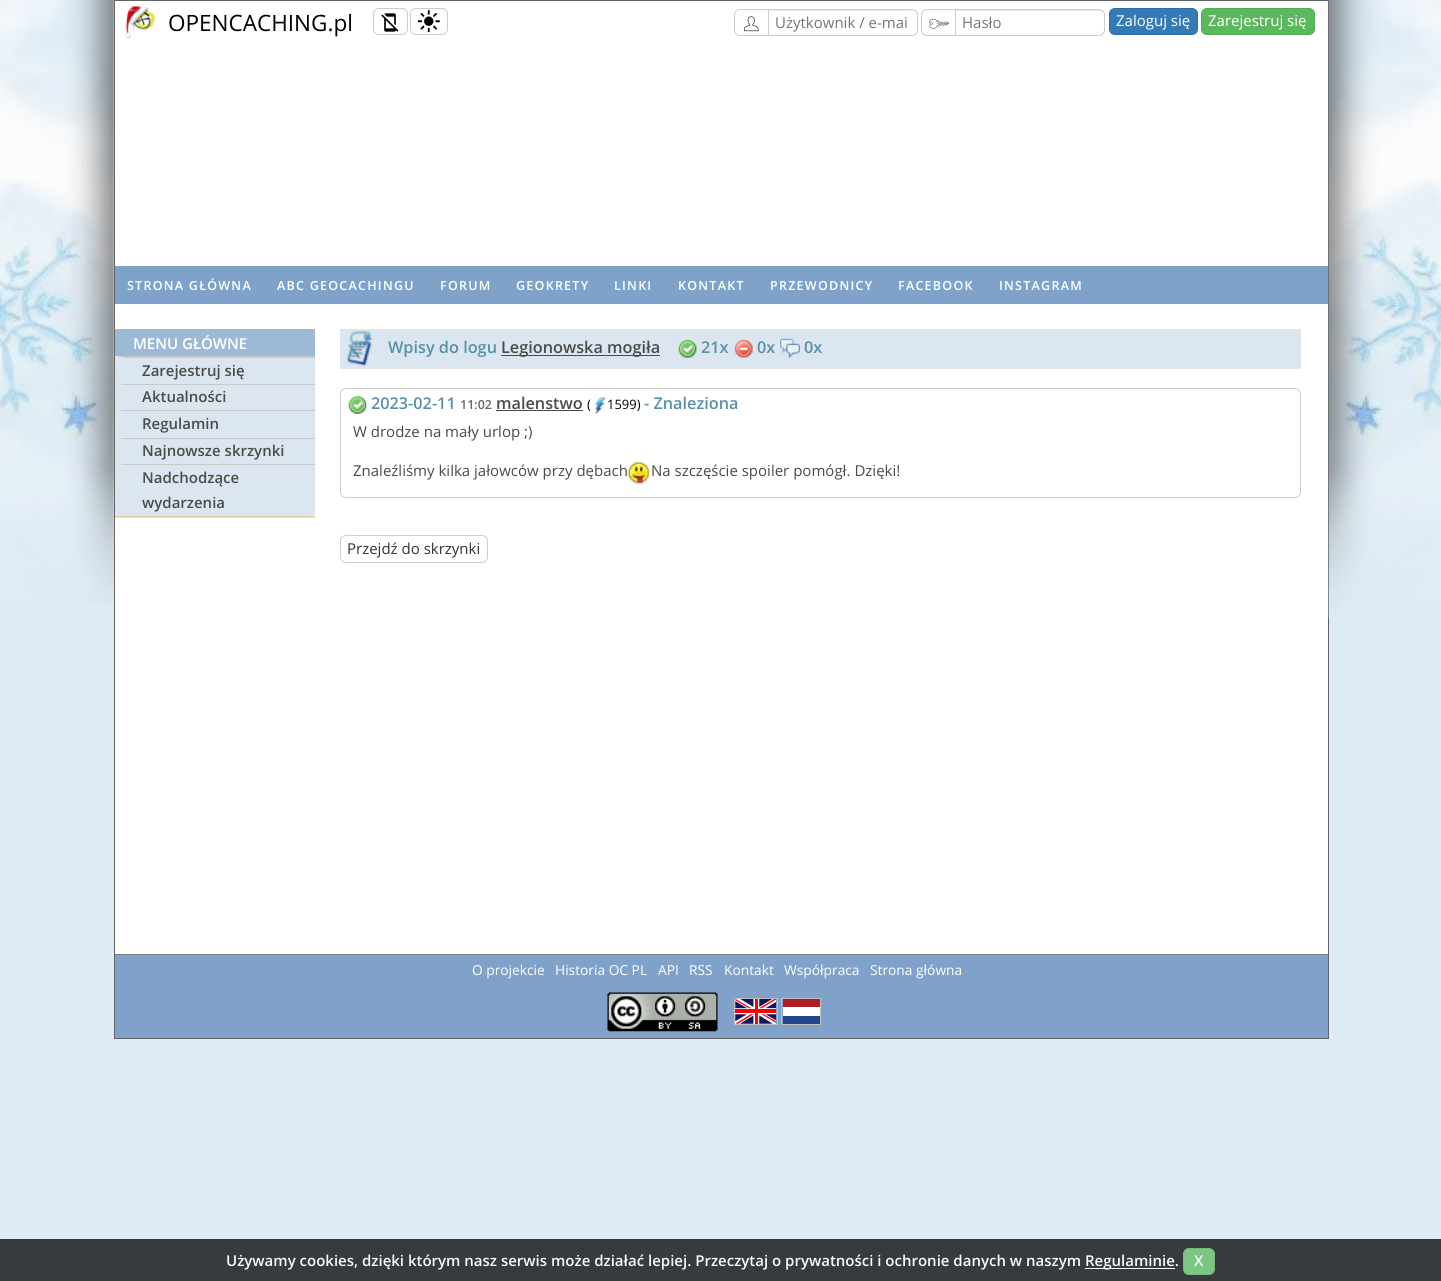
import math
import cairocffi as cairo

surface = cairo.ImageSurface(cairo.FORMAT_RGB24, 1441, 1281)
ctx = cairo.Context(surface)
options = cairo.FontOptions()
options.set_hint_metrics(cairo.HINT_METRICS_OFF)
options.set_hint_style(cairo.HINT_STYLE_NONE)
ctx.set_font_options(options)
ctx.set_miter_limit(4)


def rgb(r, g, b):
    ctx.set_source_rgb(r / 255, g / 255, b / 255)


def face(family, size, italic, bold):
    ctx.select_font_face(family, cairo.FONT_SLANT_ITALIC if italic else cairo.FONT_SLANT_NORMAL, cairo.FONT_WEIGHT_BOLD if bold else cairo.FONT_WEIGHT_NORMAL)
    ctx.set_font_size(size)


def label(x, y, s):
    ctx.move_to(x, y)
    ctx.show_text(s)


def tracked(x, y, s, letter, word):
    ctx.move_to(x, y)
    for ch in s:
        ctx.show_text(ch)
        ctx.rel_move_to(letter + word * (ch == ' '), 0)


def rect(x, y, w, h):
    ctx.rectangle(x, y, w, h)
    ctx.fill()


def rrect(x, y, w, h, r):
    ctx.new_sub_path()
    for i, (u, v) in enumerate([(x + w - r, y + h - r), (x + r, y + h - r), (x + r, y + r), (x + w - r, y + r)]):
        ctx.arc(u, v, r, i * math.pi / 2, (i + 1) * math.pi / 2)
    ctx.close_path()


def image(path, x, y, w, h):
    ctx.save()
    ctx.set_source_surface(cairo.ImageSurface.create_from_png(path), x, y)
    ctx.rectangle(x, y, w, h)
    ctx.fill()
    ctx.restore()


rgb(221, 235, 245)
ctx.paint()
rgb(255, 255, 255)
rect(115, 1, 1213, 953)
ctx.rectangle(114.5, 0.5, 1214, 1038)
rgb(100, 100, 100)
ctx.set_line_width(1)
ctx.stroke()
image('image0.png', 0, 0, 114, 604)
image('image1.png', 125, 6, 30, 33)
face('Open Sans', 22.5, 0, 0)
rgb(0, 0, 0)
label(168, 31, 'OPENCACHING.pl')
rrect(373.5, 8.5, 34, 26, 5.5)
rgb(204, 204, 204)
ctx.stroke()
image('image2.png', 381, 13, 18, 19)
rrect(410.5, 8.5, 37, 26, 5.5)
ctx.stroke()
image('image3.png', 417, 10, 23, 23)
ctx.new_path()
ctx.move_to(740, 9.5)
ctx.line_to(768.5, 9.5)
ctx.line_to(768.5, 35.5)
ctx.line_to(740, 35.5)
ctx.curve_to(737, 35.5, 734.5, 33, 734.5, 30)
ctx.line_to(734.5, 15)
ctx.curve_to(734.5, 12, 737, 9.5, 740, 9.5)
ctx.close_path()
ctx.stroke()
image('image4.png', 743, 16, 16, 16)
rgb(255, 255, 255)
ctx.new_path()
ctx.move_to(768, 9)
ctx.line_to(912, 9)
ctx.curve_to(915.5, 9, 918, 11.5, 918, 15)
ctx.line_to(918, 30)
ctx.curve_to(918, 33.5, 915.5, 36, 912, 36)
ctx.line_to(768, 36)
ctx.close_path()
ctx.fill()
rgb(236, 236, 236)
ctx.new_path()
ctx.move_to(769, 11)
ctx.line_to(911, 11)
ctx.curve_to(914, 11, 916, 13, 916, 16)
ctx.line_to(916, 15)
ctx.curve_to(916, 12, 914, 10, 911, 10)
ctx.line_to(769, 10)
ctx.close_path()
ctx.fill()
ctx.new_path()
ctx.move_to(768.5, 9.5)
ctx.line_to(912, 9.5)
ctx.curve_to(915, 9.5, 917.5, 12, 917.5, 15)
ctx.line_to(917.5, 30)
ctx.curve_to(917.5, 33, 915, 35.5, 912, 35.5)
ctx.line_to(768.5, 35.5)
ctx.close_path()
rgb(204, 204, 204)
ctx.stroke()
face('Open Sans', 15, 0, 0)
rgb(117, 117, 117)
label(775, 28, 'Użytkownik / e-mai')
ctx.new_path()
ctx.move_to(927, 9.5)
ctx.line_to(955.5, 9.5)
ctx.line_to(955.5, 35.5)
ctx.line_to(927, 35.5)
ctx.curve_to(924, 35.5, 921.5, 33, 921.5, 30)
ctx.line_to(921.5, 15)
ctx.curve_to(921.5, 12, 924, 9.5, 927, 9.5)
ctx.close_path()
rgb(204, 204, 204)
ctx.stroke()
image('image5.png', 929, 18, 20, 11)
rgb(255, 255, 255)
ctx.new_path()
ctx.move_to(955, 9)
ctx.line_to(1099, 9)
ctx.curve_to(1102.5, 9, 1105, 11.5, 1105, 15)
ctx.line_to(1105, 30)
ctx.curve_to(1105, 33.5, 1102.5, 36, 1099, 36)
ctx.line_to(955, 36)
ctx.close_path()
ctx.fill()
rgb(236, 236, 236)
ctx.new_path()
ctx.move_to(956, 11)
ctx.line_to(1099, 11)
ctx.curve_to(1102, 11, 1104, 13, 1104, 16)
ctx.line_to(1104, 15)
ctx.curve_to(1104, 12, 1102, 10, 1099, 10)
ctx.line_to(956, 10)
ctx.close_path()
ctx.fill()
ctx.new_path()
ctx.move_to(955.5, 9.5)
ctx.line_to(1099, 9.5)
ctx.curve_to(1102, 9.5, 1104.5, 12, 1104.5, 15)
ctx.line_to(1104.5, 30)
ctx.curve_to(1104.5, 33, 1102, 35.5, 1099, 35.5)
ctx.line_to(955.5, 35.5)
ctx.close_path()
rgb(204, 204, 204)
ctx.stroke()
rgb(117, 117, 117)
label(962, 28, 'Hasło')
rgb(51, 122, 183)
rrect(1109.5, 8.5, 88, 26, 5.5)
ctx.fill_preserve()
rgb(46, 109, 164)
ctx.stroke()
rgb(255, 255, 255)
label(1116, 26, 'Zaloguj się')
rgb(92, 184, 92)
rrect(1201.5, 8.5, 113, 26, 5.5)
ctx.fill_preserve()
rgb(76, 174, 76)
ctx.stroke()
rgb(255, 255, 255)
label(1208, 26, 'Zarejestruj się')
image('image6.png', 1328, 0, 113, 618)
rgb(127, 162, 202)
rect(115, 266, 1213, 38)
face('Open Sans SemiBold', 12.5, 0, 0)
rgb(255, 255, 255)
tracked(127, 290, 'STRONA GŁÓWNA', 1.25, 0)
tracked(277, 290, 'ABC GEOCACHINGU', 1.25, 0)
tracked(440, 290, 'FORUM', 1.25, 0)
tracked(516, 290, 'GEOKRETY', 1.25, 0)
tracked(614, 290, 'LINKI', 1.25, 0)
tracked(678, 290, 'KONTAKT', 1.25, 0)
tracked(770, 290, 'PRZEWODNICY', 1.25, 0)
tracked(898, 290, 'FACEBOOK', 1.25, 0)
tracked(999, 290, 'INSTAGRAM', 1.25, 0)
rgb(219, 230, 241)
rect(115, 356, 200, 162)
rgb(216, 206, 159)
rect(115, 516, 200, 1)
rgb(156, 186, 214)
rect(115, 329, 200, 27)
face('Open Sans SemiBold', 15, 0, 0)
rgb(255, 255, 255)
label(133, 349, 'MENU GŁÓWNE')
rgb(200, 200, 200)
ctx.new_path()
ctx.move_to(115, 356)
ctx.line_to(315, 356)
ctx.line_to(315, 358)
ctx.line_to(124, 358)
ctx.close_path()
ctx.fill()
rgb(219, 230, 241)
ctx.new_path()
ctx.move_to(115, 384)
ctx.line_to(115, 356)
ctx.line_to(124, 357.5)
ctx.line_to(124, 384)
ctx.close_path()
ctx.fill()
rgb(75, 75, 75)
label(142, 376, 'Zarejestruj się')
rgb(200, 200, 200)
ctx.new_path()
ctx.move_to(115, 384)
ctx.line_to(315, 384)
ctx.line_to(315, 385)
ctx.line_to(124, 385)
ctx.close_path()
ctx.fill()
rgb(219, 230, 241)
ctx.new_path()
ctx.move_to(115, 410)
ctx.line_to(115, 384)
ctx.line_to(124, 385)
ctx.line_to(124, 410)
ctx.close_path()
ctx.fill()
rgb(75, 75, 75)
label(142, 402, 'Aktualności')
rgb(200, 200, 200)
ctx.new_path()
ctx.move_to(115, 410)
ctx.line_to(315, 410)
ctx.line_to(315, 411)
ctx.line_to(124, 411)
ctx.close_path()
ctx.fill()
rgb(219, 230, 241)
ctx.new_path()
ctx.move_to(115, 437.5)
ctx.line_to(115, 410)
ctx.line_to(124, 411)
ctx.line_to(124, 437.5)
ctx.close_path()
ctx.fill()
rgb(75, 75, 75)
label(142, 429, 'Regulamin')
rgb(200, 200, 200)
ctx.new_path()
ctx.move_to(115, 438)
ctx.line_to(315, 438)
ctx.line_to(315, 439)
ctx.line_to(124, 439)
ctx.close_path()
ctx.fill()
rgb(219, 230, 241)
ctx.new_path()
ctx.move_to(115, 464)
ctx.line_to(115, 437.5)
ctx.line_to(124, 439)
ctx.line_to(124, 464)
ctx.close_path()
ctx.fill()
rgb(75, 75, 75)
label(142, 456, 'Najnowsze skrzynki')
rgb(200, 200, 200)
ctx.new_path()
ctx.move_to(115, 464)
ctx.line_to(315, 464)
ctx.line_to(315, 465)
ctx.line_to(124, 465)
ctx.close_path()
ctx.fill()
rgb(219, 230, 241)
ctx.new_path()
ctx.move_to(115, 516)
ctx.line_to(115, 464)
ctx.line_to(124, 465)
ctx.line_to(124, 516)
ctx.close_path()
ctx.fill()
rgb(75, 75, 75)
label(142, 483, 'Nadchodzące')
label(142, 508, 'wydarzenia')
rgb(219, 230, 241)
rect(340, 329, 961, 40)
image('image7.png', 347, 331, 26, 35)
face('Open Sans SemiBold', 16.25, 0, 0)
rgb(88, 144, 168)
label(388, 353, 'Wpisy do logu')
rgb(75, 75, 75)
rect(501, 355, 159, 1)
label(501, 353, 'Legionowska mogiła')
image('image8.png', 678, 339, 19, 19)
rgb(88, 144, 168)
label(701, 353, '21x')
image('image9.png', 734, 339, 19, 19)
label(757, 353, '0x')
image('image10.png', 780, 338, 20, 20)
label(804, 353, '0x')
rrect(340.5, 388.5, 960, 109, 5.5)
rgb(204, 204, 204)
ctx.stroke()
image('image11.png', 348, 396, 19, 18)
rgb(88, 144, 168)
label(371, 409, '2023-02-11')
face('Open Sans SemiBold', 12.5, 0, 0)
rgb(102, 102, 102)
label(460, 409, '11:02')
face('Open Sans SemiBold', 16.25, 0, 0)
rgb(75, 75, 75)
label(496, 409, 'malenstwo')
rect(496, 410, 87, 1)
face('Open Sans', 13, 0, 0)
rgb(0, 0, 0)
label(587, 409, '(')
image('image12.png', 595, 397, 11, 17)
label(607, 409, '1599)')
face('Open Sans SemiBold', 16.25, 0, 0)
rgb(88, 144, 168)
label(644, 409, '- Znaleziona')
face('Open Sans', 15, 0, 0)
rgb(75, 75, 75)
label(353, 437, 'W drodze na mały urlop ;)')
label(353, 476, 'Znaleźliśmy kilka jałowców przy dębach')
image('image13.png', 627, 462, 23, 22)
label(651, 476, 'Na szczęście spoiler pomógł. Dzięki!')
rrect(340.5, 535.5, 147, 27, 5.5)
rgb(204, 204, 204)
ctx.stroke()
rgb(51, 51, 51)
label(347, 554, 'Przejdź do skrzynki')
rgb(128, 161, 202)
rect(115, 955, 1213, 83)
rgb(125, 125, 125)
rect(115, 954, 1213, 1)
face('Open Sans', 13.75, 0, 0)
rgb(255, 255, 255)
label(472, 975, 'O projekcie')
label(555, 975, 'Historia OC PL')
label(658, 975, 'API')
label(689, 975, 'RSS')
label(724, 975, 'Kontakt')
label(784, 975, 'Współpraca')
label(870, 975, 'Strona główna')
image('image14.png', 607, 992, 111, 40)
ctx.rectangle(734.5, 998.5, 43, 26)
rgb(191, 191, 191)
ctx.stroke()
ctx.rectangle(781.5, 998.5, 39, 26)
ctx.stroke()
image('image15.png', 735, 999, 41, 25)
rgb(174, 28, 40)
rect(783, 999, 37, 8)
rgb(255, 255, 255)
rect(783, 1007, 37, 9)
rgb(33, 70, 139)
rect(783, 1016, 37, 8)
rgb(55, 59, 61)
rect(0, 1239, 1441, 42)
face('Open Sans SemiBold', 15, 0, 0)
rgb(247, 250, 253)
label(226, 1266, 'Używamy cookies, dzięki którym nasz serwis może działać lepiej. Przeczytaj o prywatności i ochronie danych w naszym')
rect(1085, 1268, 90, 1)
label(1085, 1266, 'Regulaminie.')
rgb(124, 197, 130)
rrect(1183.5, 1248.5, 31, 26, 5.5)
ctx.fill_preserve()
rgb(112, 189, 118)
ctx.stroke()
rgb(247, 250, 253)
label(1194, 1266, 'X')
surface.write_to_png('render.png')
